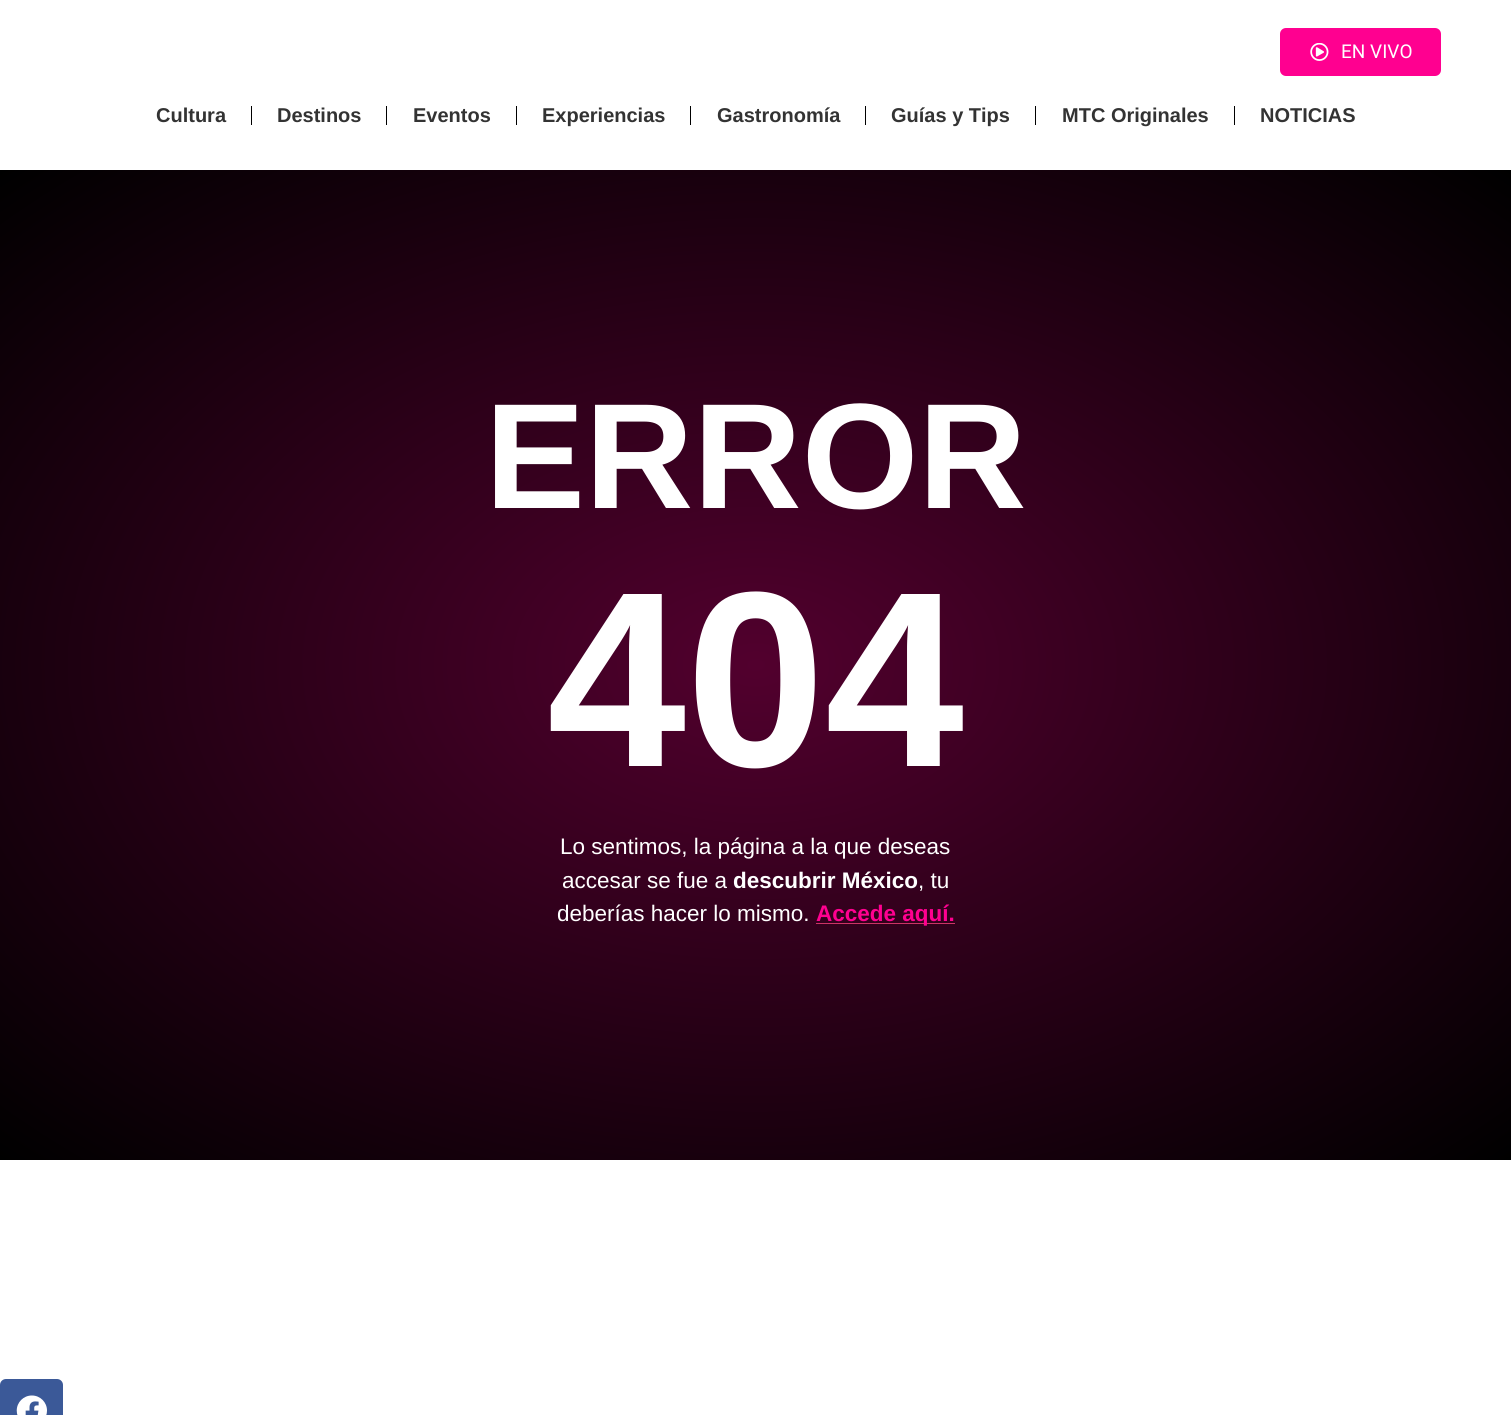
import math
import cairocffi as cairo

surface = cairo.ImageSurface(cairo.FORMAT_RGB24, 1511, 1415)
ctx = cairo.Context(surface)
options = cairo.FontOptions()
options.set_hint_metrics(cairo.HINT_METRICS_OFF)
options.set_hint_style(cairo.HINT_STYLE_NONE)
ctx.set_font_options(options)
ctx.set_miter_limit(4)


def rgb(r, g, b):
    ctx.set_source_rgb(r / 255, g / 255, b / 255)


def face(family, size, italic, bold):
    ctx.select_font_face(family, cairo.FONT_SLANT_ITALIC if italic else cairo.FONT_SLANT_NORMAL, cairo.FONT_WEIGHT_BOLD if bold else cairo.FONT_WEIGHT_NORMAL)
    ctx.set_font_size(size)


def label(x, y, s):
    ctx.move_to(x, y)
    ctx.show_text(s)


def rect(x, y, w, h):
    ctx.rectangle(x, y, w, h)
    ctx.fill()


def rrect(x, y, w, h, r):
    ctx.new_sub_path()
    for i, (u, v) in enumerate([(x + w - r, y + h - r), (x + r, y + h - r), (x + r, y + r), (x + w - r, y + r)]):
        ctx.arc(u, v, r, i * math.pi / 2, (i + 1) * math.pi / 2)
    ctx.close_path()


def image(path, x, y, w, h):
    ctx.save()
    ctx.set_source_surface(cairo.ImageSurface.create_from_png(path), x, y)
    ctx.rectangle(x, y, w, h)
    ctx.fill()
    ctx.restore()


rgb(255, 255, 255)
ctx.paint()
rgb(255, 0, 144)
rrect(1280, 28, 161, 48, 6)
ctx.fill()
image('image0.png', 1310, 43, 19, 18)
face('Roboto', 19, 0, 0)
rgb(255, 255, 255)
label(1341, 58, 'EN VIVO')
face('Liberation Sans', 20, 0, 1)
rgb(51, 51, 51)
label(156, 122, 'Cultura')
rgb(0, 0, 0)
rect(251, 106, 1, 19)
rgb(51, 51, 51)
label(277, 122, 'Destinos')
rgb(0, 0, 0)
rect(386, 106, 1, 19)
rgb(51, 51, 51)
label(413, 122, 'Eventos')
rgb(0, 0, 0)
rect(516, 106, 1, 19)
rgb(51, 51, 51)
label(542, 122, 'Experiencias')
rgb(0, 0, 0)
rect(690, 106, 1, 19)
rgb(51, 51, 51)
label(717, 122, 'Gastronomía')
rgb(0, 0, 0)
rect(865, 106, 1, 19)
rgb(51, 51, 51)
label(891, 122, 'Guías y Tips')
rgb(0, 0, 0)
rect(1035, 106, 1, 19)
rgb(51, 51, 51)
label(1062, 122, 'MTC Originales')
rgb(0, 0, 0)
rect(1234, 106, 1, 19)
rgb(51, 51, 51)
label(1260, 122, 'NOTICIAS')
gradient = cairo.RadialGradient(0, 0, 0, 0, 0, 1)
gradient.set_matrix(cairo.Matrix(1 / 1069, 0, 0, 1 / 700, -1 * 756 / 1069, -1 * 665 / 700))
gradient.add_color_stop_rgba(0, 0.322, 0, 0.18, 1)
gradient.add_color_stop_rgba(1, 0, 0, 0, 1)
ctx.set_source(gradient)
rect(0, 170, 1511, 990)
face('Liberation Sans', 150, 0, 1)
rgb(255, 255, 255)
label(485, 508, 'ERROR')
face('Liberation Sans', 250, 0, 1)
label(547, 766, '404')
face('Liberation Sans', 22.5, 0, 0)
label(560, 854, 'Lo sentimos, la página a la que deseas')
label(562, 888, 'accesar se fue a')
face('Liberation Sans', 22.5, 0, 1)
label(733, 888, 'descubrir México')
face('Liberation Sans', 22.5, 0, 0)
label(918, 888, ', tu')
label(557, 921, 'deberías hacer lo mismo.')
rgb(204, 51, 102)
rect(816, 923, 139, 1)
face('Liberation Sans', 22.5, 0, 1)
rgb(255, 0, 144)
label(816, 921, 'Accede aquí.')
rgb(59, 89, 152)
rrect(0, 1379, 63, 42, 6)
ctx.fill()
image('image1.png', 16, 1395, 31, 20)
surface.write_to_png('render.png')
